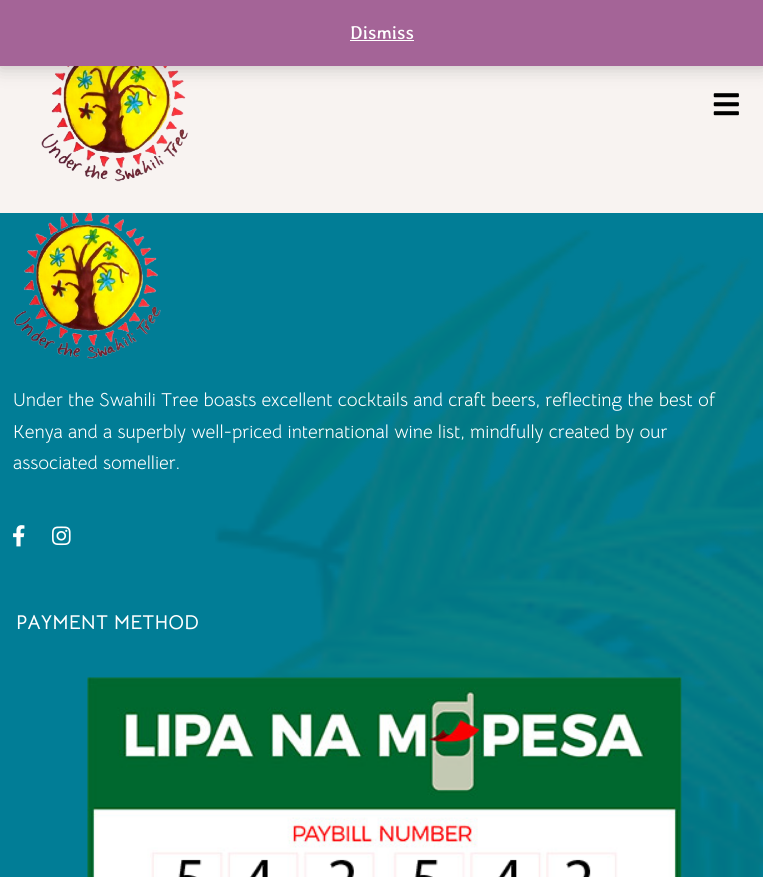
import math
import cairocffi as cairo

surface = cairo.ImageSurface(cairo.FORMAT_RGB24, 763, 877)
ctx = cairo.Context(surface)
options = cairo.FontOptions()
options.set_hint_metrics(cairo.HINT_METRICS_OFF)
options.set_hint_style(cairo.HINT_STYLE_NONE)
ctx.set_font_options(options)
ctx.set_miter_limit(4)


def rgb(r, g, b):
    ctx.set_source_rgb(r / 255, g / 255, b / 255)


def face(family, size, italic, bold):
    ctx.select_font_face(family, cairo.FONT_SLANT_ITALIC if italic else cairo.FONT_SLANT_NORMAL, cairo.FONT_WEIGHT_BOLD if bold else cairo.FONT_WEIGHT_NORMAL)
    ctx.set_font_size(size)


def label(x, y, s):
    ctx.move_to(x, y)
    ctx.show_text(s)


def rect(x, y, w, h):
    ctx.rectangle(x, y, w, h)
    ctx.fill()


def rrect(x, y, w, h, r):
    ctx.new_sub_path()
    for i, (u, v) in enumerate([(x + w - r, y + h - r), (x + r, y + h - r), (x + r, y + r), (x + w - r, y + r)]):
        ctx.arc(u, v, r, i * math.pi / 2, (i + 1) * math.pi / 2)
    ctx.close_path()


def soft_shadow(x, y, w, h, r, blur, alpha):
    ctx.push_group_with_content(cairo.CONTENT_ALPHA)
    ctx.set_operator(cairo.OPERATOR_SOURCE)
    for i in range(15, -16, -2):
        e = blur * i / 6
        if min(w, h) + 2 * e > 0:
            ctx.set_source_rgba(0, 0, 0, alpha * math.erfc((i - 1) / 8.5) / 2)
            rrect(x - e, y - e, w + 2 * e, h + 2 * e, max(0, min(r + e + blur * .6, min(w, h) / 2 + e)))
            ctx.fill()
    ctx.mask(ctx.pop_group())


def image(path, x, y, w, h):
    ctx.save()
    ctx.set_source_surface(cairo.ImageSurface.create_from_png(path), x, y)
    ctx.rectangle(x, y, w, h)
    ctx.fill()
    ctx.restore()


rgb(1, 125, 150)
ctx.paint()
rgb(248, 243, 241)
rect(0, 66, 763, 147)
image('image0.png', 41, 66, 148, 116)
image('image1.png', 713, 93, 26, 23)
rgb(0, 0, 0)
soft_shadow(0, 1, 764, 67, 0, 9.5, 0.2)
rgb(164, 100, 151)
rect(0, 0, 763, 66)
face('Averia Libre', 18.75, 0, 0)
rgb(255, 255, 255)
label(350, 39, 'Dismiss')
rect(350, 40, 64, 1)
image('image2.png', 215, 230, 548, 647)
image('image3.png', 14, 213, 147, 146)
face('Bellota Text', 18.75, 0, 0)
label(13, 406, 'Under the Swahili Tree boasts excellent cocktails and craft beers, reflecting the best of')
label(13, 438, 'Kenya and a superbly well-priced international wine list, mindfully created by our')
label(13, 469, 'associated somellier.')
image('image4.png', 13, 525, 12, 22)
image('image5.png', 52, 526, 19, 20)
face('Bellota Text', 20, 0, 1)
label(16, 629, 'PAYMENT METHOD')
image('image6.png', 87, 677, 595, 200)
surface.write_to_png('render.png')
